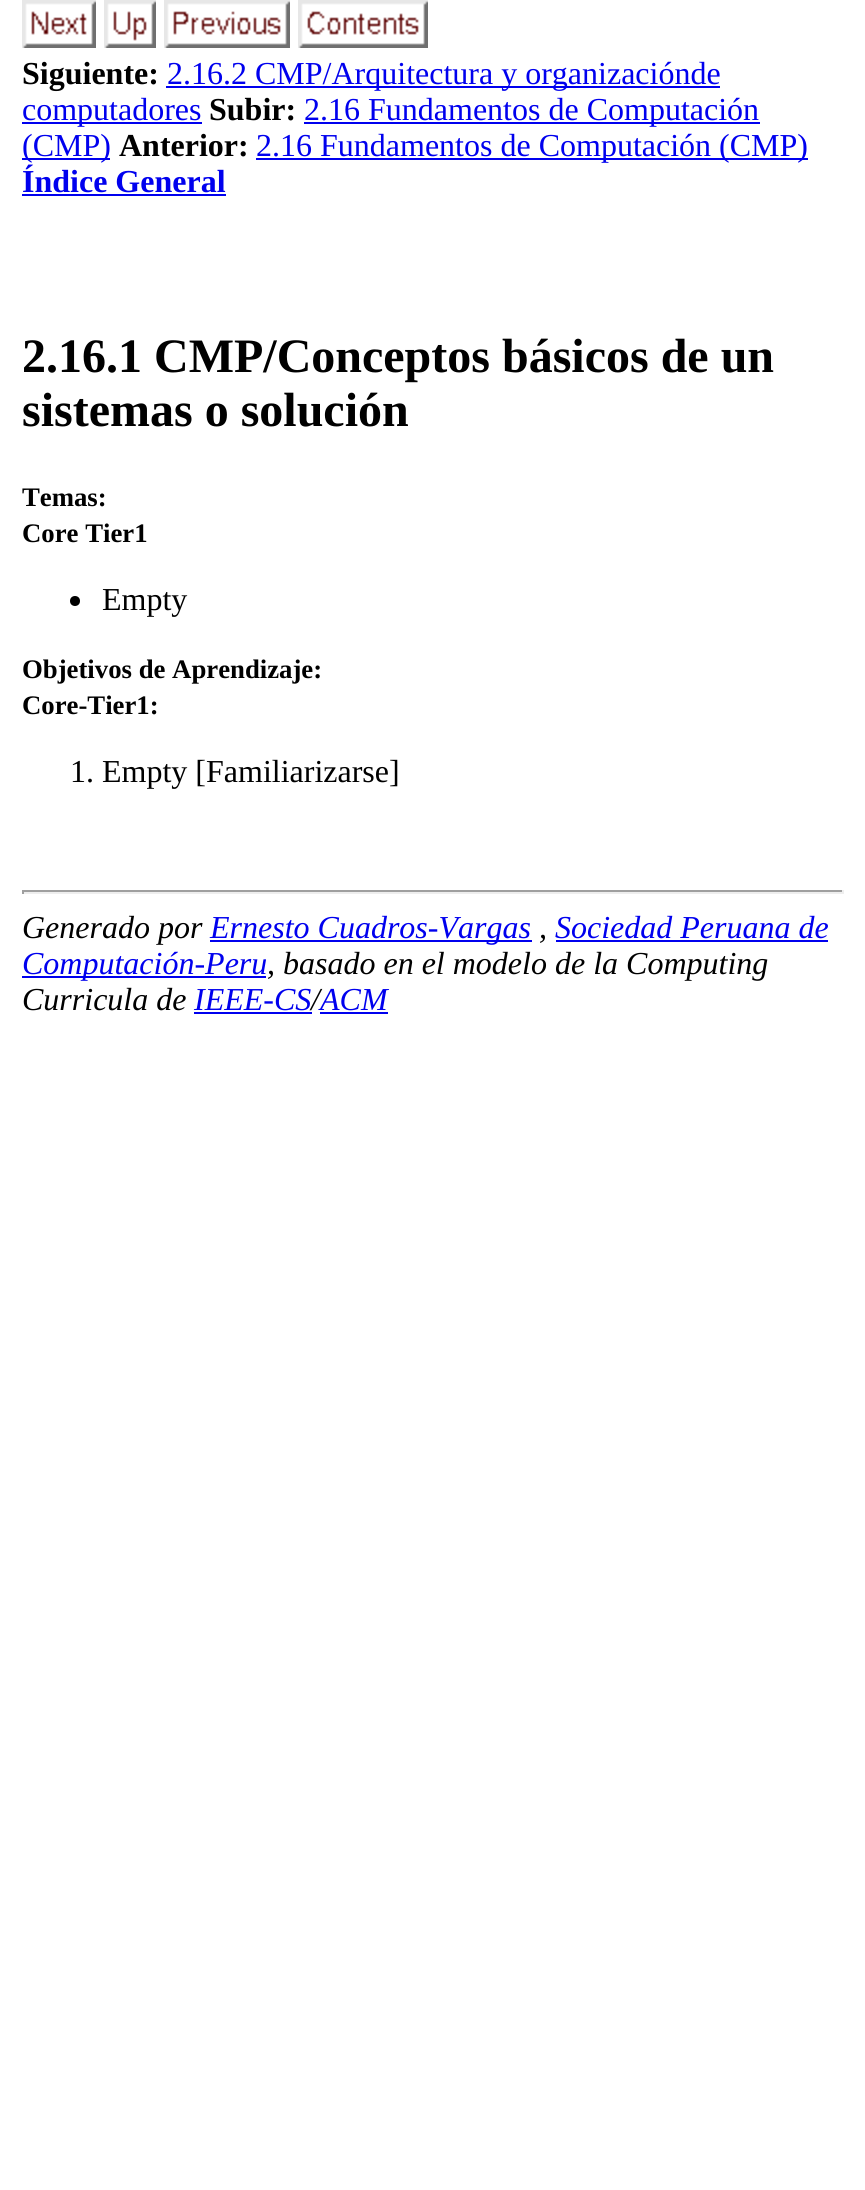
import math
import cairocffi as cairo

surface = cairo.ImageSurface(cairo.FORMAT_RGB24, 865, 2190)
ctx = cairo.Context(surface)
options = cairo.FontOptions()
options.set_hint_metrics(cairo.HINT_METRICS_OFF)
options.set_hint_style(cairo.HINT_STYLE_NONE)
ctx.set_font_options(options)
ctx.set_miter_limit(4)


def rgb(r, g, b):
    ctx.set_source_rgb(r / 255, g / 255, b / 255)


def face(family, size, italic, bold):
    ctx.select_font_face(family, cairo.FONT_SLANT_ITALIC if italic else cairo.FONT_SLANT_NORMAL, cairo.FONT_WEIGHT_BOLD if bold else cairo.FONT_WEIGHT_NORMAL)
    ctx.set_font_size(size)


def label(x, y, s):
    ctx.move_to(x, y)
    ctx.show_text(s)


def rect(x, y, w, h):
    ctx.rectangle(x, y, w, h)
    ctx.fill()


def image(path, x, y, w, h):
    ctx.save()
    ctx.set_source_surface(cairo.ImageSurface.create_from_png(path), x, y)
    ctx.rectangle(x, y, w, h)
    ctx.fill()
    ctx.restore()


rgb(255, 255, 255)
ctx.paint()
image('image0.png', 22, 0, 74, 48)
image('image1.png', 104, 0, 52, 48)
image('image2.png', 164, 0, 126, 48)
image('image3.png', 298, 0, 130, 48)
face('Liberation Serif', 32, 0, 1)
rgb(0, 0, 0)
label(22, 84, 'Siguiente:')
rgb(0, 0, 238)
rect(166, 86, 554, 2)
face('Liberation Serif', 32, 0, 0)
label(167, 84, '2.16.2 CMP/Arquitectura y organizaciónde')
rect(22, 122, 180, 2)
label(22, 120, 'computadores')
face('Liberation Serif', 32, 0, 1)
rgb(0, 0, 0)
label(209, 120, 'Subir:')
rgb(0, 0, 238)
rect(304, 122, 456, 2)
face('Liberation Serif', 32, 0, 0)
label(304, 120, '2.16 Fundamentos de Computación')
rect(22, 158, 88, 2)
label(22, 156, '(CMP)')
face('Liberation Serif', 32, 0, 1)
rgb(0, 0, 0)
label(119, 156, 'Anterior:')
rgb(0, 0, 238)
rect(256, 158, 552, 2)
face('Liberation Serif', 32, 0, 0)
label(256, 156, '2.16 Fundamentos de Computación (CMP)')
face('Liberation Serif', 32, 0, 1)
label(22, 192, 'Índice General')
rect(22, 194, 204, 2)
face('Liberation Serif', 48, 0, 1)
rgb(0, 0, 0)
label(22, 372, '2.16.1 CMP/Conceptos básicos de un')
label(22, 426, 'sistemas o solución')
face('Liberation Serif', 26.75, 0, 1)
label(22, 506, 'Temas:')
label(22, 542, 'Core Tier1')
ctx.new_path()
ctx.arc(75, 601, 5, 0, 2 * math.pi)
ctx.fill()
face('Liberation Serif', 32, 0, 0)
label(102, 610, 'Empty')
face('Liberation Serif', 26.75, 0, 1)
label(22, 678, 'Objetivos de Aprendizaje:')
label(22, 714, 'Core-Tier1:')
face('Liberation Serif', 32, 0, 0)
label(70, 782, '1. Empty [Familiarizarse]')
rgb(159, 159, 159)
rect(22, 890, 822, 2)
rgb(238, 238, 238)
rect(842, 890, 2, 4)
rect(22, 892, 822, 2)
rgb(159, 159, 159)
rect(22, 890, 2, 4)
face('Liberation Serif', 32, 1, 0)
rgb(0, 0, 0)
label(22, 938, 'Generado por')
rgb(0, 0, 238)
rect(210, 940, 322, 2)
label(210, 938, 'Ernesto Cuadros-Vargas')
rgb(0, 0, 0)
label(539, 938, ',')
rgb(0, 0, 238)
rect(556, 940, 272, 2)
label(555, 938, 'Sociedad Peruana de')
rect(22, 976, 244, 2)
label(22, 974, 'Computación-Peru')
rgb(0, 0, 0)
label(267, 974, ', basado en el modelo de la Computing')
label(22, 1010, 'Curricula de')
rgb(0, 0, 238)
label(194, 1010, 'IEEE-CS')
rect(194, 1012, 118, 2)
rgb(0, 0, 0)
label(311, 1010, '/')
rgb(0, 0, 238)
rect(320, 1012, 68, 2)
label(320, 1010, 'ACM')
surface.write_to_png('render.png')
